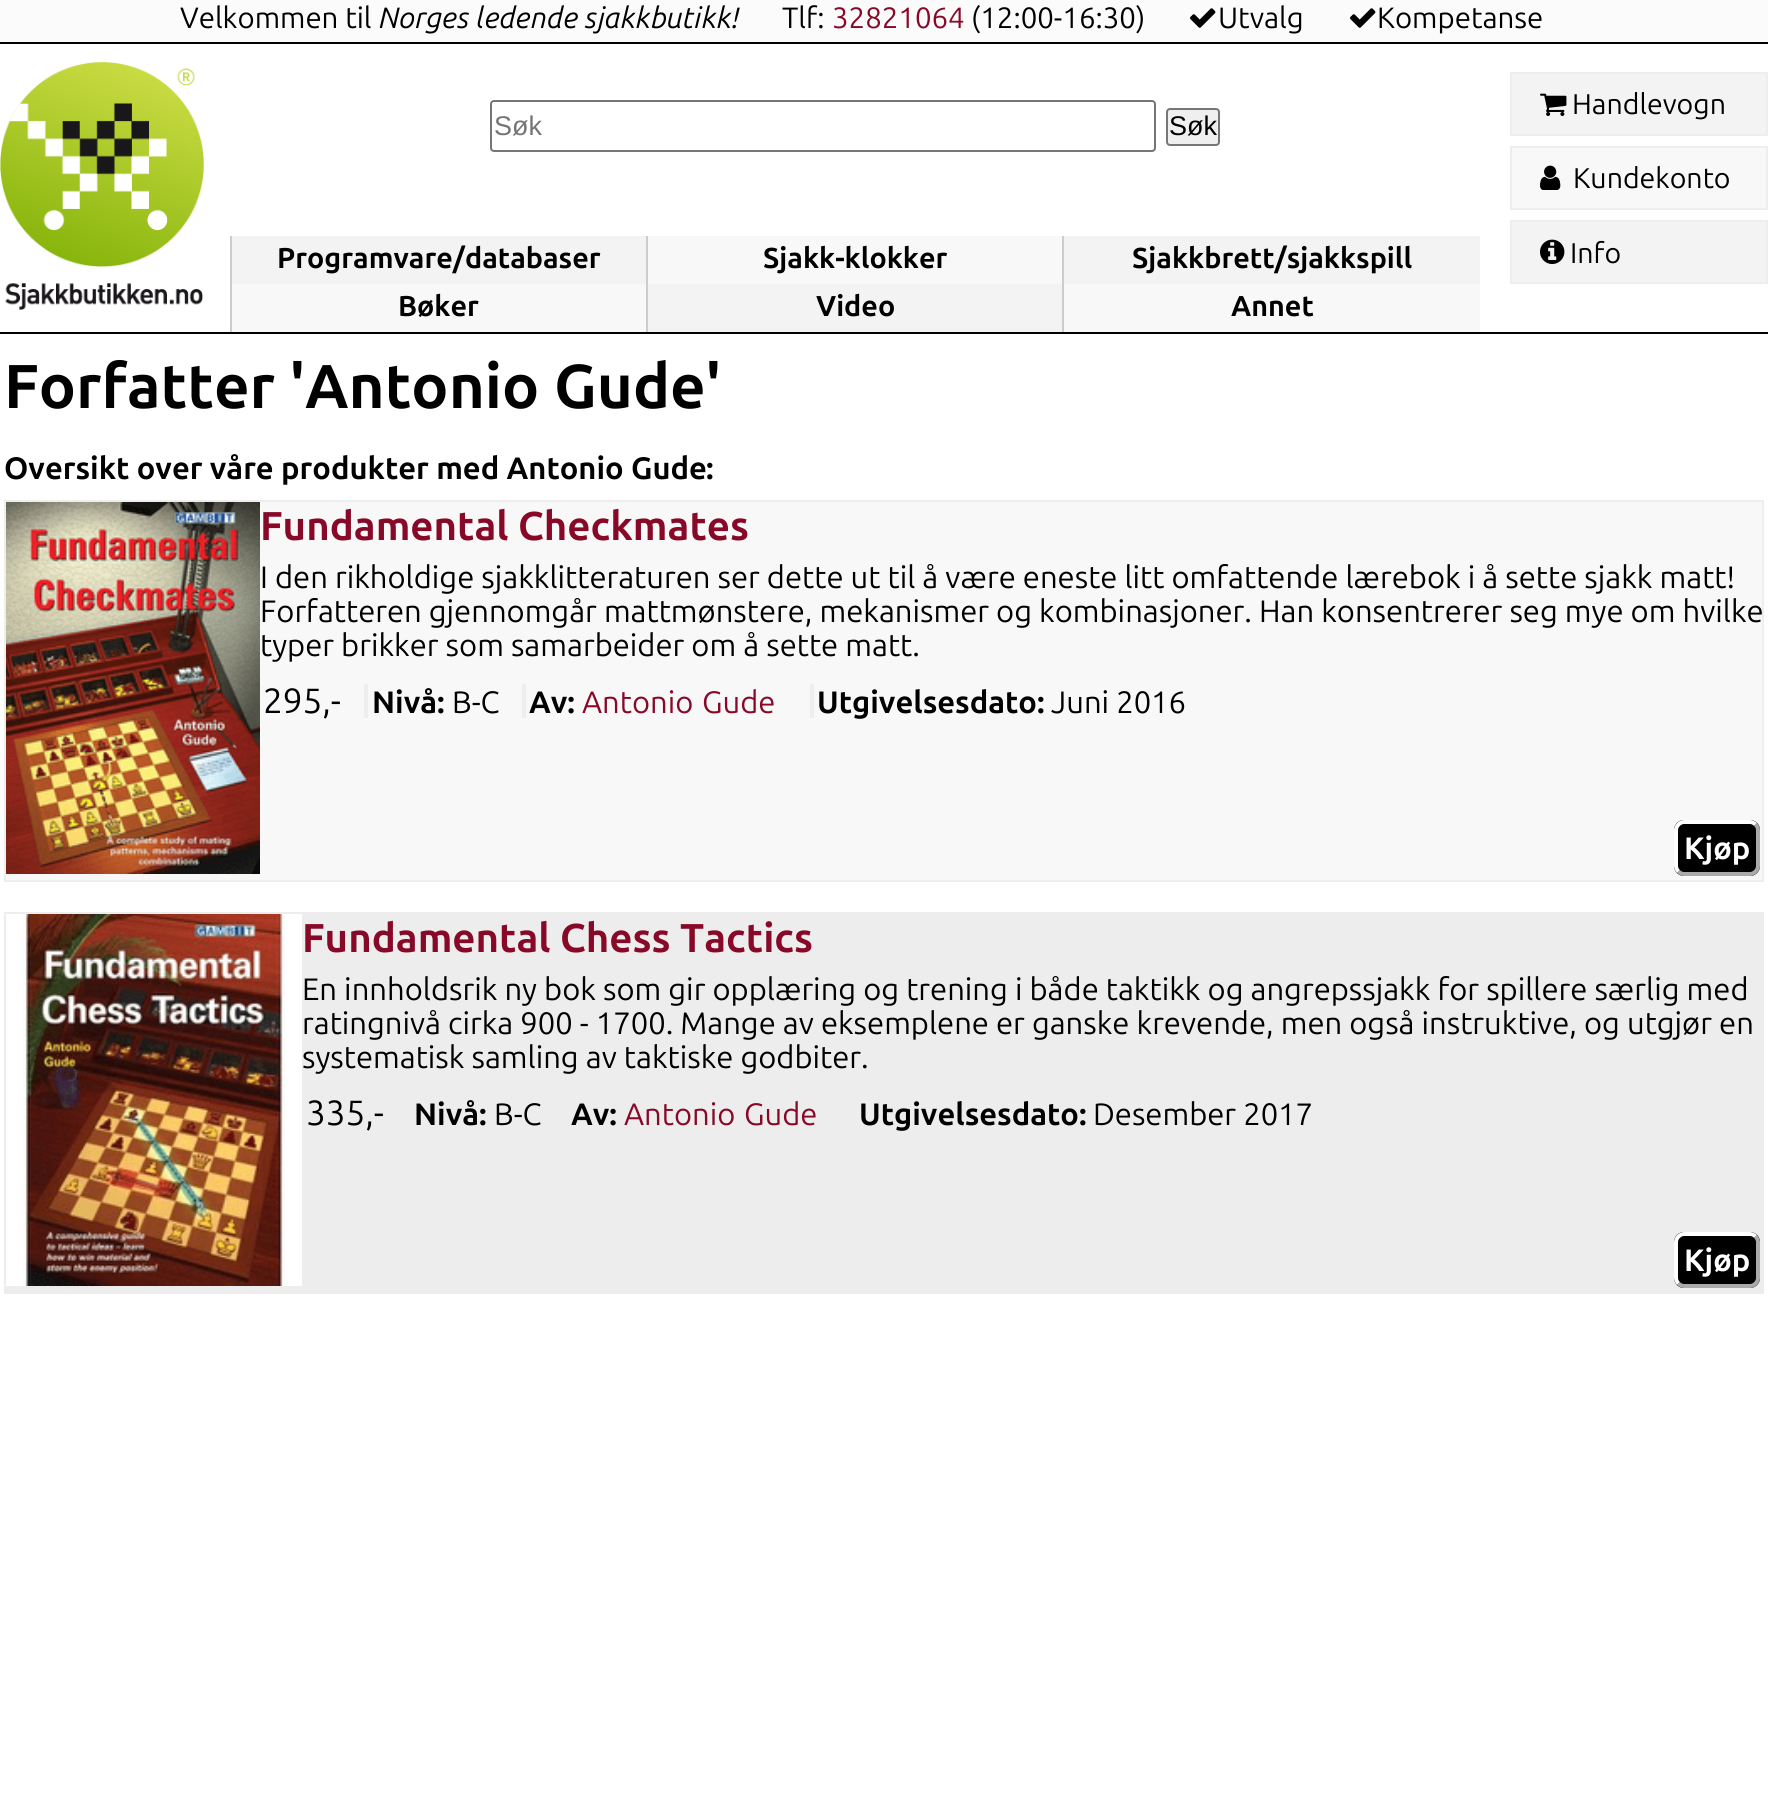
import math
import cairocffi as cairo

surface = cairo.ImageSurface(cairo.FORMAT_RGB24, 1768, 1810)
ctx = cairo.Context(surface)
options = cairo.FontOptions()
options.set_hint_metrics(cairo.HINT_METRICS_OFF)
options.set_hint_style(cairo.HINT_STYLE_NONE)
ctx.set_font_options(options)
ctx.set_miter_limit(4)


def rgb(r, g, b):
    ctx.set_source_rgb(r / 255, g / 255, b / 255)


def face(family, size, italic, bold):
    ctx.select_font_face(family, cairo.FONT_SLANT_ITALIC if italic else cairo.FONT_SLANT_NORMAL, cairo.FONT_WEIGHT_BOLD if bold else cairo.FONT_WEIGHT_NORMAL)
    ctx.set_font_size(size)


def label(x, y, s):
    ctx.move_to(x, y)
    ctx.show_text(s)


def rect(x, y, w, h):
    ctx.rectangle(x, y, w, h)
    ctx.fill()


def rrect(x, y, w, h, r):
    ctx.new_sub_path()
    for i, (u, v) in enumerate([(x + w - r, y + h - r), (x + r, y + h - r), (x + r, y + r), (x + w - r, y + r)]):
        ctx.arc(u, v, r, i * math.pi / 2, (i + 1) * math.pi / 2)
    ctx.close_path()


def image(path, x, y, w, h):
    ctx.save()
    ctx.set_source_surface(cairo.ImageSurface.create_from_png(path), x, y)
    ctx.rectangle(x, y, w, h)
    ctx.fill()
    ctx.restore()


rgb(255, 255, 255)
ctx.paint()
rgb(0, 0, 0)
rect(0, 332, 1768, 2)
image('image0.png', 0, 62, 204, 248)
rgb(251, 251, 251)
rect(0, 0, 1768, 42)
rgb(0, 0, 0)
rect(0, 42, 1768, 2)
face('Ubuntu', 29.4, 0, 0)
label(180, 28, 'Velkommen til')
face('Ubuntu', 29.4, 1, 0)
label(379, 28, 'Norges ledende sjakkbutikk!')
face('Ubuntu', 29.4, 0, 0)
label(782, 28, 'Tlf:')
rgb(136, 8, 40)
label(832, 28, '32821064')
rgb(0, 0, 0)
label(971, 28, '(12:00-16:30)')
image('image1.png', 1190, 8, 26, 20)
label(1218, 28, 'Utvalg')
image('image1.png', 1350, 8, 26, 20)
label(1377, 28, 'Kompetanse')
rrect(491, 101, 664, 50, 3)
rgb(118, 118, 118)
ctx.stroke()
face('Liberation Sans', 27, 0, 0)
rgb(117, 117, 117)
label(494, 135, 'Søk')
rgb(239, 239, 239)
rrect(1167, 109, 52, 36, 3)
ctx.fill_preserve()
rgb(118, 118, 118)
ctx.stroke()
rgb(0, 0, 0)
label(1169, 135, 'Søk')
rgb(243, 243, 243)
rect(232, 236, 414, 48)
rgb(204, 204, 204)
rect(230, 236, 2, 96)
face('Ubuntu', 28.75, 0, 1)
rgb(0, 0, 0)
label(277, 268, 'Programvare/databaser')
rgb(248, 248, 248)
rect(648, 236, 414, 48)
rgb(204, 204, 204)
rect(646, 236, 2, 96)
rgb(0, 0, 0)
label(763, 268, 'Sjakk-klokker')
rgb(243, 243, 243)
rect(1064, 236, 416, 48)
rgb(204, 204, 204)
rect(1062, 236, 2, 96)
rgb(0, 0, 0)
label(1132, 268, 'Sjakkbrett/sjakkspill')
rgb(248, 248, 248)
rect(232, 284, 414, 48)
rgb(0, 0, 0)
label(398, 316, 'Bøker')
rgb(243, 243, 243)
rect(648, 284, 414, 48)
rgb(0, 0, 0)
label(816, 316, 'Video')
rgb(248, 248, 248)
rect(1064, 284, 416, 48)
rgb(0, 0, 0)
label(1231, 316, 'Annet')
rgb(243, 243, 243)
ctx.rectangle(1511, 73, 256, 62)
ctx.fill_preserve()
rgb(238, 238, 238)
ctx.stroke()
image('image2.png', 1540, 93, 27, 23)
face('Ubuntu', 28.5, 0, 0)
rgb(0, 0, 0)
label(1572, 114, 'Handlevogn')
rgb(248, 248, 248)
ctx.rectangle(1511, 147, 256, 62)
ctx.fill_preserve()
rgb(238, 238, 238)
ctx.stroke()
image('image3.png', 1540, 165, 21, 25)
rgb(0, 0, 0)
label(1573, 188, 'Kundekonto')
rgb(243, 243, 243)
ctx.rectangle(1511, 221, 256, 62)
ctx.fill_preserve()
rgb(238, 238, 238)
ctx.stroke()
image('image4.png', 1540, 239, 25, 25)
rgb(0, 0, 0)
label(1570, 263, 'Info')
face('Ubuntu', 61.9, 0, 1)
label(4, 408, 'Forfatter \'Antonio Gude\'')
face('Ubuntu', 30.95, 0, 1)
label(4, 479, 'Oversikt over våre produkter med Antonio Gude')
label(706, 479, ':')
rgb(248, 248, 248)
ctx.rectangle(5, 501, 1758, 380)
ctx.fill_preserve()
rgb(238, 238, 238)
ctx.stroke()
image('image5.png', 6, 502, 254, 372)
face('Ubuntu', 40.25, 0, 1)
rgb(136, 8, 40)
label(260, 540, 'Fundamental Checkmates')
face('Ubuntu', 30.95, 0, 0)
rgb(0, 0, 0)
label(260, 588, 'I den rikholdige sjakklitteraturen ser dette ut til å være eneste litt omfattende lærebok i å sette sjakk matt!')
label(260, 622, 'Forfatteren gjennomgår mattmønstere, mekanismer og kombinasjoner. Han konsentrerer seg mye om hvilke')
label(260, 656, 'typer brikker som samarbeider om å sette matt.')
face('Ubuntu', 35, 0, 0)
label(263, 713, '295,-')
rgb(238, 238, 238)
rect(364, 684, 4, 34)
face('Ubuntu', 30.95, 0, 1)
rgb(0, 0, 0)
label(372, 713, 'Nivå:')
face('Ubuntu', 30.95, 0, 0)
label(452, 713, 'B-C')
rgb(238, 238, 238)
rect(522, 684, 4, 34)
face('Ubuntu', 30.95, 0, 1)
rgb(0, 0, 0)
label(529, 713, 'Av:')
face('Ubuntu', 30.95, 0, 0)
rgb(136, 8, 40)
label(582, 713, 'Antonio')
label(702, 713, 'Gude')
rgb(238, 238, 238)
rect(810, 684, 4, 34)
face('Ubuntu', 30.95, 0, 1)
rgb(0, 0, 0)
label(817, 713, 'Utgivelsesdato:')
face('Ubuntu', 30.95, 0, 0)
label(1051, 713, 'Juni 2016')
rrect(1674, 820, 86, 56, 10)
ctx.fill()
ctx.new_path()
ctx.move_to(1755.5, 824.5)
ctx.curve_to(1757, 826, 1758, 828, 1758, 830)
ctx.line_to(1758, 866)
ctx.curve_to(1758, 868, 1757, 870, 1755.5, 871.5)
ctx.curve_to(1754, 873, 1752, 874, 1750, 874)
ctx.line_to(1684, 874)
ctx.curve_to(1682, 874, 1680, 873, 1678.5, 871.5)
rgb(170, 170, 170)
ctx.set_line_width(4)
ctx.stroke()
ctx.new_path()
ctx.move_to(1678.5, 871.5)
ctx.curve_to(1677, 870, 1676, 868, 1676, 866)
ctx.line_to(1676, 830)
ctx.curve_to(1676, 828, 1677, 826, 1678.5, 824.5)
ctx.curve_to(1680, 823, 1682, 822, 1684, 822)
ctx.line_to(1750, 822)
ctx.curve_to(1752, 822, 1754, 823, 1755.5, 824.5)
rgb(255, 255, 255)
ctx.stroke()
face('Ubuntu', 30.95, 0, 1)
label(1684, 859, 'Kjøp')
rgb(237, 237, 237)
rect(4, 912, 1760, 382)
rgb(255, 255, 255)
rect(6, 914, 296, 372)
image('image6.png', 23, 914, 262, 372)
face('Ubuntu', 40.25, 0, 1)
rgb(136, 8, 40)
label(302, 952, 'Fundamental Chess Tactics')
face('Ubuntu', 30.95, 0, 0)
rgb(0, 0, 0)
label(302, 1000, 'En innholdsrik ny bok som gir opplæring og trening i både taktikk og angrepssjakk for spillere særlig med')
label(302, 1034, 'ratingnivå cirka 900 - 1700. Mange av eksemplene er ganske krevende, men også instruktive, og utgjør en')
label(302, 1068, 'systematisk samling av taktiske godbiter.')
face('Ubuntu', 35, 0, 0)
label(306, 1125, '335,-')
face('Ubuntu', 30.95, 0, 1)
label(414, 1125, 'Nivå:')
face('Ubuntu', 30.95, 0, 0)
label(494, 1125, 'B-C')
face('Ubuntu', 30.95, 0, 1)
label(571, 1125, 'Av:')
face('Ubuntu', 30.95, 0, 0)
rgb(136, 8, 40)
label(624, 1125, 'Antonio')
label(744, 1125, 'Gude')
face('Ubuntu', 30.95, 0, 1)
rgb(0, 0, 0)
label(859, 1125, 'Utgivelsesdato:')
face('Ubuntu', 30.95, 0, 0)
label(1093, 1125, 'Desember 2017')
rrect(1674, 1232, 86, 56, 10)
ctx.fill()
ctx.new_path()
ctx.move_to(1755.5, 1236.5)
ctx.curve_to(1757, 1238, 1758, 1240, 1758, 1242)
ctx.line_to(1758, 1278)
ctx.curve_to(1758, 1280, 1757, 1282, 1755.5, 1283.5)
ctx.curve_to(1754, 1285, 1752, 1286, 1750, 1286)
ctx.line_to(1684, 1286)
ctx.curve_to(1682, 1286, 1680, 1285, 1678.5, 1283.5)
rgb(170, 170, 170)
ctx.stroke()
ctx.new_path()
ctx.move_to(1678.5, 1283.5)
ctx.curve_to(1677, 1282, 1676, 1280, 1676, 1278)
ctx.line_to(1676, 1242)
ctx.curve_to(1676, 1240, 1677, 1238, 1678.5, 1236.5)
ctx.curve_to(1680, 1235, 1682, 1234, 1684, 1234)
ctx.line_to(1750, 1234)
ctx.curve_to(1752, 1234, 1754, 1235, 1755.5, 1236.5)
rgb(255, 255, 255)
ctx.stroke()
face('Ubuntu', 30.95, 0, 1)
label(1684, 1271, 'Kjøp')
surface.write_to_png('render.png')
